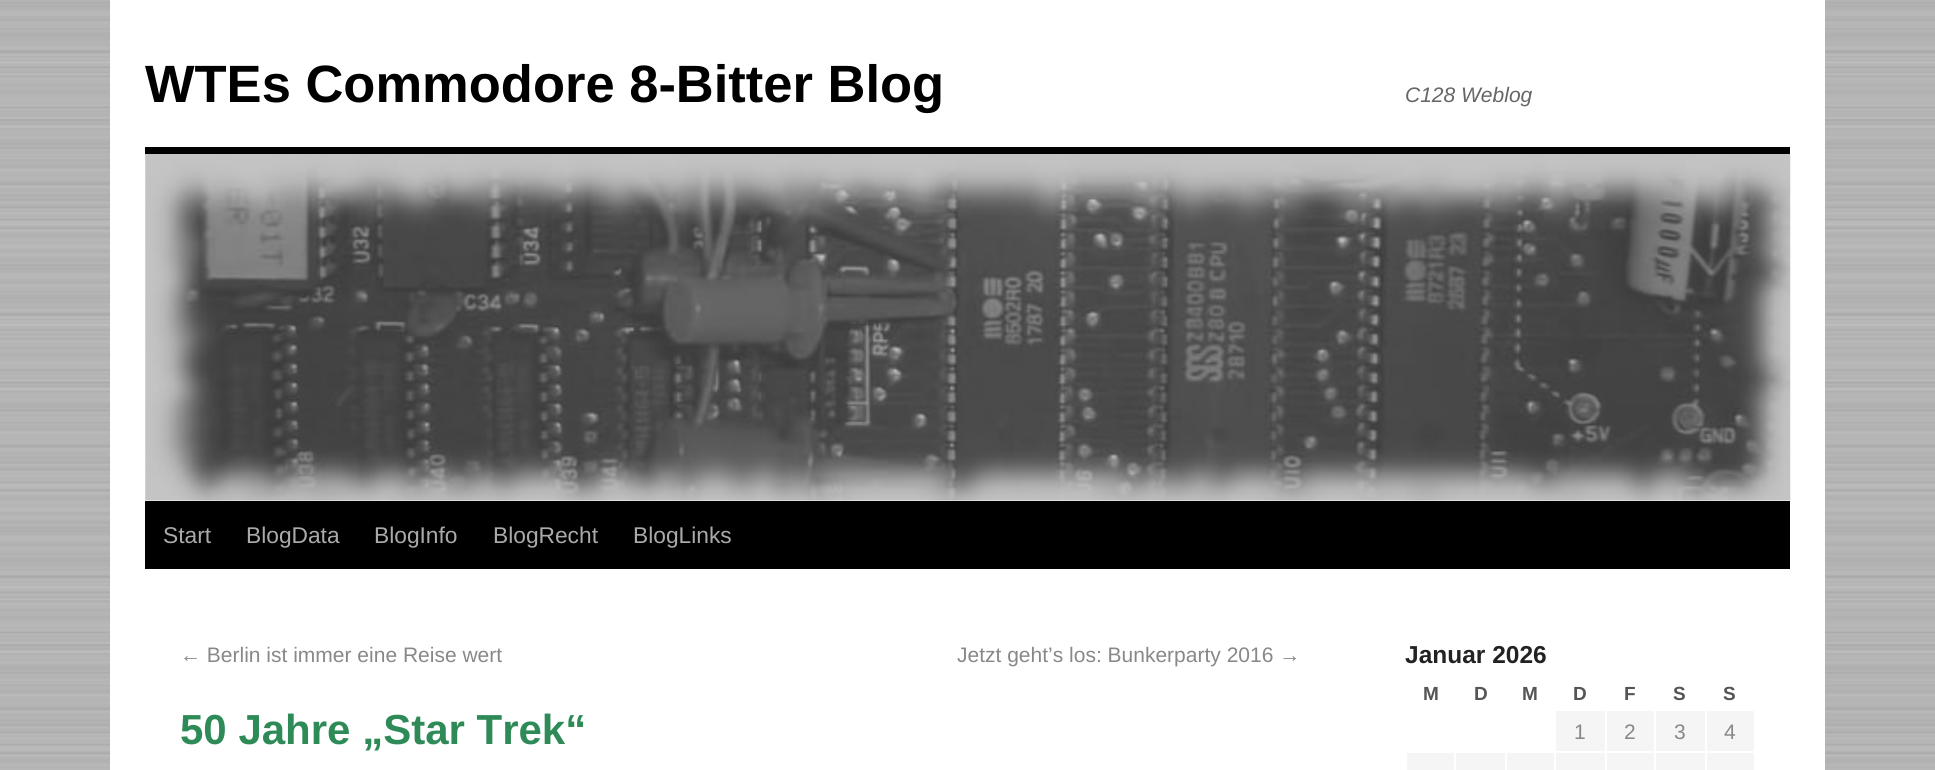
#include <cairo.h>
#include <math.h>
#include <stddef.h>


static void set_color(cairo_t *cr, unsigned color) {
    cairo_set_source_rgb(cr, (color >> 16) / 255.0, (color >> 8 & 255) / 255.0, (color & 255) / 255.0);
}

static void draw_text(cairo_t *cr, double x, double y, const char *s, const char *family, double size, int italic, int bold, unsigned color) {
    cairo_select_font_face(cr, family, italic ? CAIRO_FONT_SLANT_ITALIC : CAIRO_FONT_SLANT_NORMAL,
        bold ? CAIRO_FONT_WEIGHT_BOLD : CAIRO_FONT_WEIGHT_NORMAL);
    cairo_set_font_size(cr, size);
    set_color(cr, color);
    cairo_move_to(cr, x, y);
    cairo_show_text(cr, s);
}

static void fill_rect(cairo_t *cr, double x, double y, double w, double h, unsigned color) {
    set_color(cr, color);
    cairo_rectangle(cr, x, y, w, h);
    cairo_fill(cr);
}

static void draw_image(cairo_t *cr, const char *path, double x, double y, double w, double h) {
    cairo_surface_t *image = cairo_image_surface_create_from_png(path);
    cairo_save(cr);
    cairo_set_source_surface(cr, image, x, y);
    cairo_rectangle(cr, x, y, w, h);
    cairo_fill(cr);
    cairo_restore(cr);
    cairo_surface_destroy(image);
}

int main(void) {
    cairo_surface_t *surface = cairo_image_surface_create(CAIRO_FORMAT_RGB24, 1935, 770);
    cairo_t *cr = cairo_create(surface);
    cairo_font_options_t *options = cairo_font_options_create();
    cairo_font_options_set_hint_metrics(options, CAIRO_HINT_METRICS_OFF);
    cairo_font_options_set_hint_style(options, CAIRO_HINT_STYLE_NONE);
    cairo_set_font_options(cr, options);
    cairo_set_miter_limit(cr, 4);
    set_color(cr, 0xFFFFFF);
    cairo_paint(cr);
    draw_image(cr, "assets/img1.png", 0, 0, 1935, 770);
    fill_rect(cr, 110, 0, 1715, 770, 0xFFFFFF);
    draw_text(cr, 145, 102, "WTEs Commodore 8-Bitter Blog", "Liberation Sans", 52.5, 0, 1, 0x000000);
    draw_text(cr, 1405, 102, "C128 Weblog", "Liberation Sans", 21, 1, 0, 0x666666);
    fill_rect(cr, 145, 147, 1645, 7, 0x000000);
    fill_rect(cr, 145, 501, 1645, 68, 0x000000);
    draw_image(cr, "assets/img2.png", 145, 154, 1646, 347);
    draw_text(cr, 163, 543, "Start", "Liberation Sans", 22.75, 0, 0, 0xAAAAAA);
    draw_text(cr, 246, 543, "BlogData", "Liberation Sans", 22.75, 0, 0, 0xAAAAAA);
    draw_text(cr, 374, 543, "BlogInfo", "Liberation Sans", 22.75, 0, 0, 0xAAAAAA);
    draw_text(cr, 493, 543, "BlogRecht", "Liberation Sans", 22.75, 0, 0, 0xAAAAAA);
    draw_text(cr, 633, 543, "BlogLinks", "Liberation Sans", 22.75, 0, 0, 0xAAAAAA);
    draw_text(cr, 180, 662, "← Berlin ist immer eine Reise wert", "Liberation Sans", 21, 0, 0, 0x888888);
    draw_text(cr, 957, 662, "Jetzt geht’s los: Bunkerparty 2016 →", "Liberation Sans", 21, 0, 0, 0x888888);
    draw_text(cr, 180, 744, "50 Jahre „Star Trek“", "Liberation Sans", 42, 0, 1, 0x2E8B57);
    draw_text(cr, 1405, 663, "Januar 2026", "Liberation Sans", 24.5, 0, 1, 0x222222);
    draw_text(cr, 1423, 700, "M", "Liberation Sans", 19, 0, 1, 0x555555);
    draw_text(cr, 1474, 700, "D", "Liberation Sans", 19, 0, 1, 0x555555);
    draw_text(cr, 1522, 700, "M", "Liberation Sans", 19, 0, 1, 0x555555);
    draw_text(cr, 1573, 700, "D", "Liberation Sans", 19, 0, 1, 0x555555);
    draw_text(cr, 1624, 700, "F", "Liberation Sans", 19, 0, 1, 0x555555);
    draw_text(cr, 1673, 700, "S", "Liberation Sans", 19, 0, 1, 0x555555);
    draw_text(cr, 1723, 700, "S", "Liberation Sans", 19, 0, 1, 0x555555);
    fill_rect(cr, 1556, 711, 49, 40, 0xF5F5F5);
    draw_text(cr, 1574, 739, "1", "Liberation Sans", 21, 0, 0, 0x888888);
    fill_rect(cr, 1607, 711, 47, 40, 0xF5F5F5);
    draw_text(cr, 1624, 739, "2", "Liberation Sans", 21, 0, 0, 0x888888);
    fill_rect(cr, 1656, 711, 49, 40, 0xF5F5F5);
    draw_text(cr, 1674, 739, "3", "Liberation Sans", 21, 0, 0, 0x888888);
    fill_rect(cr, 1707, 711, 47, 40, 0xF5F5F5);
    draw_text(cr, 1724, 739, "4", "Liberation Sans", 21, 0, 0, 0x888888);
    fill_rect(cr, 1407, 753, 47, 17, 0xF5F5F5);
    fill_rect(cr, 1456, 753, 49, 17, 0xF5F5F5);
    fill_rect(cr, 1507, 753, 47, 17, 0xF5F5F5);
    fill_rect(cr, 1556, 753, 49, 17, 0xF5F5F5);
    fill_rect(cr, 1607, 753, 47, 17, 0xF5F5F5);
    fill_rect(cr, 1656, 753, 49, 17, 0xF5F5F5);
    fill_rect(cr, 1707, 753, 47, 17, 0xF5F5F5);
    cairo_surface_write_to_png(surface, "output.png");
    cairo_font_options_destroy(options);
    cairo_destroy(cr);
    cairo_surface_destroy(surface);
    return 0;
}
